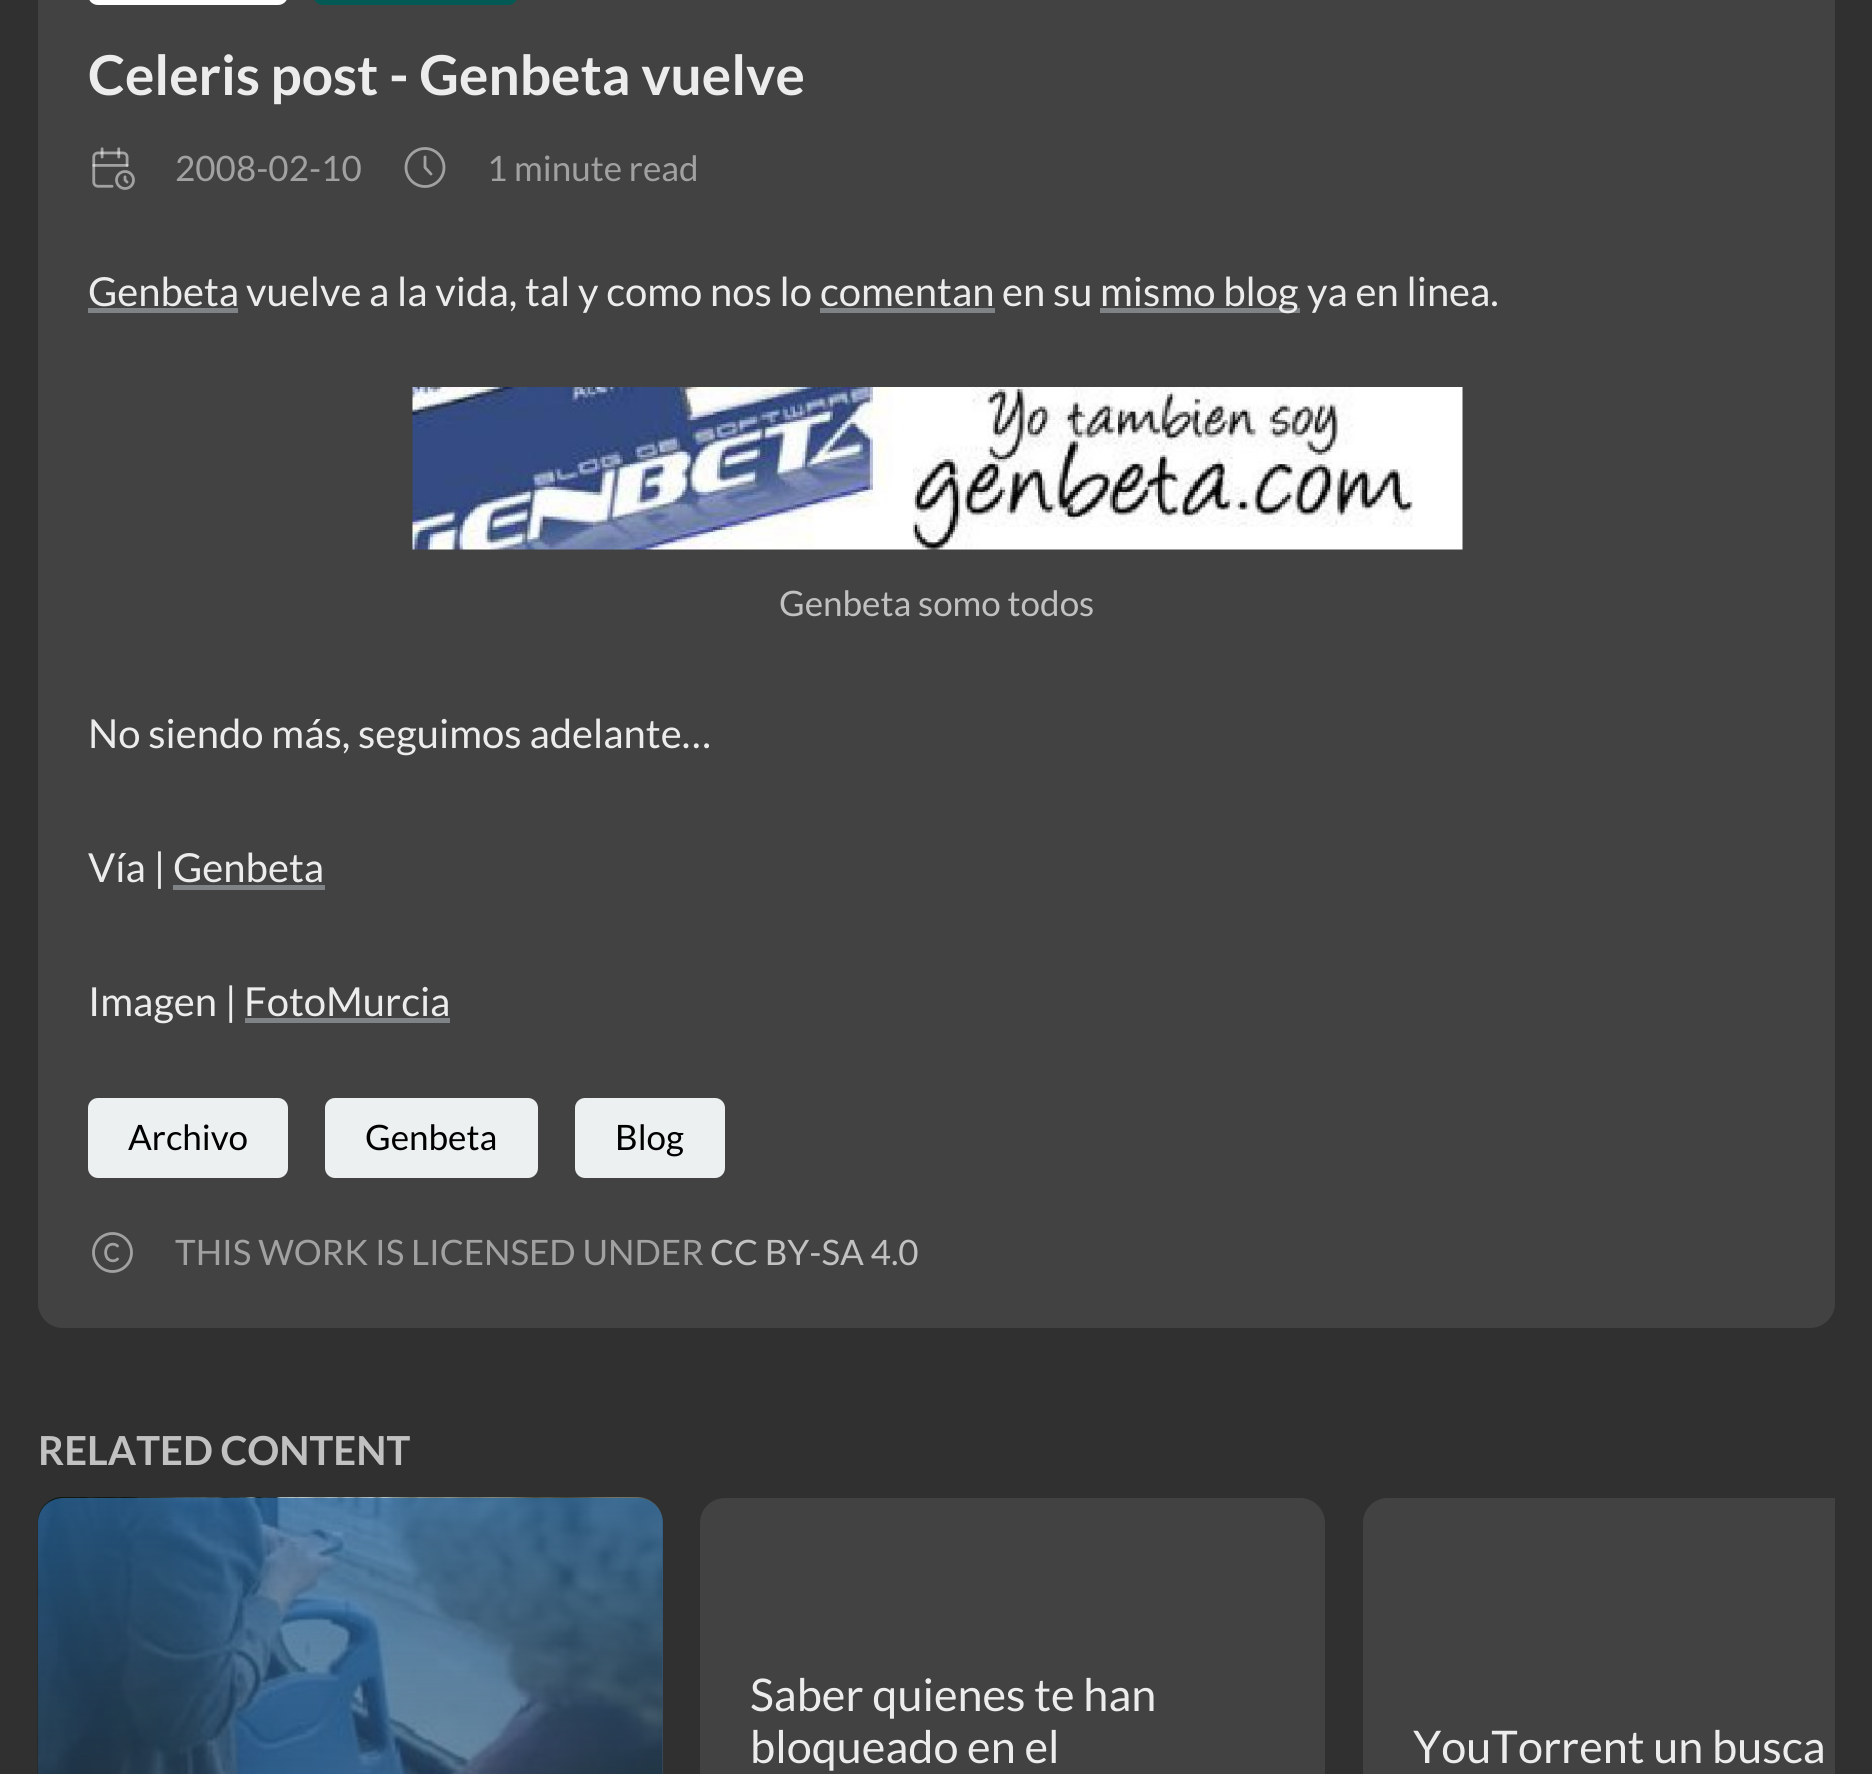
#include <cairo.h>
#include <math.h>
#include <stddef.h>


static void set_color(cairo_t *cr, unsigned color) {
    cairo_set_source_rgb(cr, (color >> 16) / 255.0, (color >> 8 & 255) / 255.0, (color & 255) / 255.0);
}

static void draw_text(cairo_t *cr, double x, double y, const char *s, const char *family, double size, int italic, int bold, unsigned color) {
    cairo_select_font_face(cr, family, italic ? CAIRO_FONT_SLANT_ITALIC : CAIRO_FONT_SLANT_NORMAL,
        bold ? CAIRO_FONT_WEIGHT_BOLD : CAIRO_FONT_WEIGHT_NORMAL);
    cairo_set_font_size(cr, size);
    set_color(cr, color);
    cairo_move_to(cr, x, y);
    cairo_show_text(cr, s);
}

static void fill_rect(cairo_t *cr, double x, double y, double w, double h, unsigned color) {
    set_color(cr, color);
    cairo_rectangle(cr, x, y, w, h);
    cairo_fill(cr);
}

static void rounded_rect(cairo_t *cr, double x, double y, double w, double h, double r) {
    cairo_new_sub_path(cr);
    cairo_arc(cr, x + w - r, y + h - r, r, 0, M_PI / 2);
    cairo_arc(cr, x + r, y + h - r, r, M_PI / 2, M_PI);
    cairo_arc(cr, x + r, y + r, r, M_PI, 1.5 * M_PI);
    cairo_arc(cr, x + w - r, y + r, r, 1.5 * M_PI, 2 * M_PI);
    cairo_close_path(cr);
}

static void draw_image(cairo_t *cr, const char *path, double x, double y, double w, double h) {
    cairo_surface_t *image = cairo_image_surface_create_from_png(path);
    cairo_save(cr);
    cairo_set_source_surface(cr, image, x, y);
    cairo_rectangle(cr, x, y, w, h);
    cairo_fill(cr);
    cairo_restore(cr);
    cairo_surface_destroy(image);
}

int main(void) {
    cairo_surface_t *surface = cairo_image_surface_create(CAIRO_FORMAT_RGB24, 1872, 1774);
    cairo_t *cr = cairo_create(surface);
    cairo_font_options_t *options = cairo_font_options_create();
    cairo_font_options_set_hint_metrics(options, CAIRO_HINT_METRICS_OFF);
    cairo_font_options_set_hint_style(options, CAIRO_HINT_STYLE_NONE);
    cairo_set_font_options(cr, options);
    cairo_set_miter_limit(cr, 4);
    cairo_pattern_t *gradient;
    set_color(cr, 0x303030);
    cairo_paint(cr);
    set_color(cr, 0x424242);
    rounded_rect(cr, 38, -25, 1797, 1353, 25);
    cairo_fill(cr);
    set_color(cr, 0xFFFFFF);
    rounded_rect(cr, 88, -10, 200, 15, 10);
    cairo_fill(cr);
    set_color(cr, 0x035954);
    rounded_rect(cr, 313, -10, 205, 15, 10);
    cairo_fill(cr);
    draw_text(cr, 88, 95, "Celeris post - Genbeta vuelve", "Lato", 55, 0, 1, 0xECECEC);
    draw_image(cr, "assets/img1.png", 92, 147, 43, 43);
    draw_text(cr, 175, 181, "2008-02-10", "Lato", 35, 0, 0, 0xA1A1A1);
    cairo_new_path(cr);
    cairo_arc(cr, 425, 167.5, 19, 0, 2 * M_PI);
    cairo_set_line_width(cr, 2.8);
    cairo_stroke(cr);
    cairo_new_path(cr);
    cairo_move_to(cr, 425, 157);
    cairo_line_to(cr, 425, 167.5);
    cairo_line_to(cr, 431, 174);
    cairo_set_line_cap(cr, CAIRO_LINE_CAP_ROUND);
    cairo_set_line_join(cr, CAIRO_LINE_JOIN_ROUND);
    cairo_stroke(cr);
    draw_text(cr, 487, 181, "1 minute read", "Lato", 35, 0, 0, 0xA1A1A1);
    draw_text(cr, 88, 306, "Genbeta", "Lato", 40, 0, 0, 0xECECEC);
    fill_rect(cr, 88, 308, 150, 5, 0x808385);
    draw_text(cr, 246, 306, "vuelve a la vida, tal y como nos lo", "Lato", 40, 0, 0, 0xECECEC);
    draw_text(cr, 820, 306, "comentan", "Lato", 40, 0, 0, 0xECECEC);
    fill_rect(cr, 820, 308, 175, 5, 0x808385);
    draw_text(cr, 1002, 306, "en su", "Lato", 40, 0, 0, 0xECECEC);
    fill_rect(cr, 1100, 308, 200, 5, 0x808385);
    draw_text(cr, 1100, 306, "mismo blog", "Lato", 40, 0, 0, 0xECECEC);
    draw_text(cr, 1307, 306, "ya en linea.", "Lato", 40, 0, 0, 0xECECEC);
    draw_image(cr, "assets/img2.png", 412, 387, 1051, 163);
    draw_text(cr, 779, 616, "Genbeta somo todos", "Lato", 35, 0, 0, 0xC1C1C1);
    draw_text(cr, 88, 748, "No siendo más, seguimos adelante…", "Lato", 40, 0, 0, 0xECECEC);
    draw_text(cr, 88, 882, "Vía |", "Lato", 40, 0, 0, 0xECECEC);
    draw_text(cr, 173, 882, "Genbeta", "Lato", 40, 0, 0, 0xECECEC);
    fill_rect(cr, 173, 885, 152, 5, 0x808385);
    draw_text(cr, 88, 1016, "Imagen |", "Lato", 40, 0, 0, 0xECECEC);
    draw_text(cr, 244, 1016, "FotoMurcia", "Lato", 40, 0, 0, 0xECECEC);
    fill_rect(cr, 245, 1018, 205, 5, 0x808385);
    set_color(cr, 0xECF0F1);
    rounded_rect(cr, 88, 1098, 200, 80, 10);
    cairo_fill(cr);
    draw_text(cr, 128, 1150, "Archivo", "Lato", 35, 0, 0, 0x000000);
    set_color(cr, 0xECF0F1);
    rounded_rect(cr, 325, 1098, 213, 80, 10);
    cairo_fill(cr);
    draw_text(cr, 365, 1150, "Genbeta", "Lato", 35, 0, 0, 0x000000);
    set_color(cr, 0xECF0F1);
    rounded_rect(cr, 575, 1098, 150, 80, 10);
    cairo_fill(cr);
    draw_text(cr, 615, 1150, "Blog", "Lato", 35, 0, 0, 0x000000);
    cairo_new_path(cr);
    cairo_arc(cr, 112.5, 1252.5, 19, 0, 2 * M_PI);
    set_color(cr, 0xA1A1A1);
    cairo_set_line_cap(cr, CAIRO_LINE_CAP_BUTT);
    cairo_set_line_join(cr, CAIRO_LINE_JOIN_MITER);
    cairo_stroke(cr);
    cairo_new_path(cr);
    cairo_move_to(cr, 117.5, 1246);
    cairo_curve_to(cr, 115, 1243.5, 110.5, 1243.5, 107.5, 1246.5);
    cairo_curve_to(cr, 105, 1250, 105, 1255, 107.5, 1258.5);
    cairo_curve_to(cr, 110.5, 1261.5, 115, 1261.5, 117.5, 1259);
    cairo_set_line_cap(cr, CAIRO_LINE_CAP_ROUND);
    cairo_set_line_join(cr, CAIRO_LINE_JOIN_ROUND);
    cairo_stroke(cr);
    draw_text(cr, 175, 1265, "THIS WORK IS LICENSED UNDER", "Lato", 35, 0, 0, 0xA1A1A1);
    draw_text(cr, 710, 1265, "CC BY-SA 4.0", "Lato", 35, 0, 0, 0xC1C1C1);
    draw_text(cr, 38, 1465, "RELATED CONTENT", "Lato", 40, 0, 1, 0xC1C1C1);
    set_color(cr, 0x424242);
    rounded_rect(cr, 38, 1498, 625, 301, 25);
    cairo_fill(cr);
    draw_image(cr, "assets/img3.png", 37, 1497, 626, 277);
    gradient = cairo_pattern_create_linear(350, 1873, 350, 1498);
    cairo_pattern_add_color_stop_rgba(gradient, 0, 0.22, 0.306, 0.396, 0.5);
    cairo_pattern_add_color_stop_rgba(gradient, 1, 0.165, 0.408, 0.635, 0.75);
    cairo_set_source(cr, gradient);
    cairo_pattern_destroy(gradient);
    rounded_rect(cr, 38, 1498, 625, 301, 25);
    cairo_fill(cr);
    set_color(cr, 0x424242);
    rounded_rect(cr, 700, 1498, 625, 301, 25);
    cairo_fill(cr);
    draw_text(cr, 750, 1711, "Saber quienes te han", "Lato", 45, 0, 0, 0xECECEC);
    draw_text(cr, 750, 1763, "bloqueado en el", "Lato", 45, 0, 0, 0xECECEC);
    set_color(cr, 0x424242);
    cairo_new_path(cr);
    cairo_move_to(cr, 1388, 1498);
    cairo_line_to(cr, 1835, 1498);
    cairo_line_to(cr, 1835, 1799);
    cairo_line_to(cr, 1388, 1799);
    cairo_curve_to(cr, 1374, 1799, 1363, 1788, 1363, 1774);
    cairo_line_to(cr, 1363, 1523);
    cairo_curve_to(cr, 1363, 1509, 1374, 1498, 1388, 1498);
    cairo_close_path(cr);
    cairo_fill(cr);
    draw_text(cr, 1413, 1763, "YouTorrent un busca", "Lato", 45, 0, 0, 0xECECEC);
    cairo_surface_write_to_png(surface, "output.png");
    cairo_font_options_destroy(options);
    cairo_destroy(cr);
    cairo_surface_destroy(surface);
    return 0;
}
